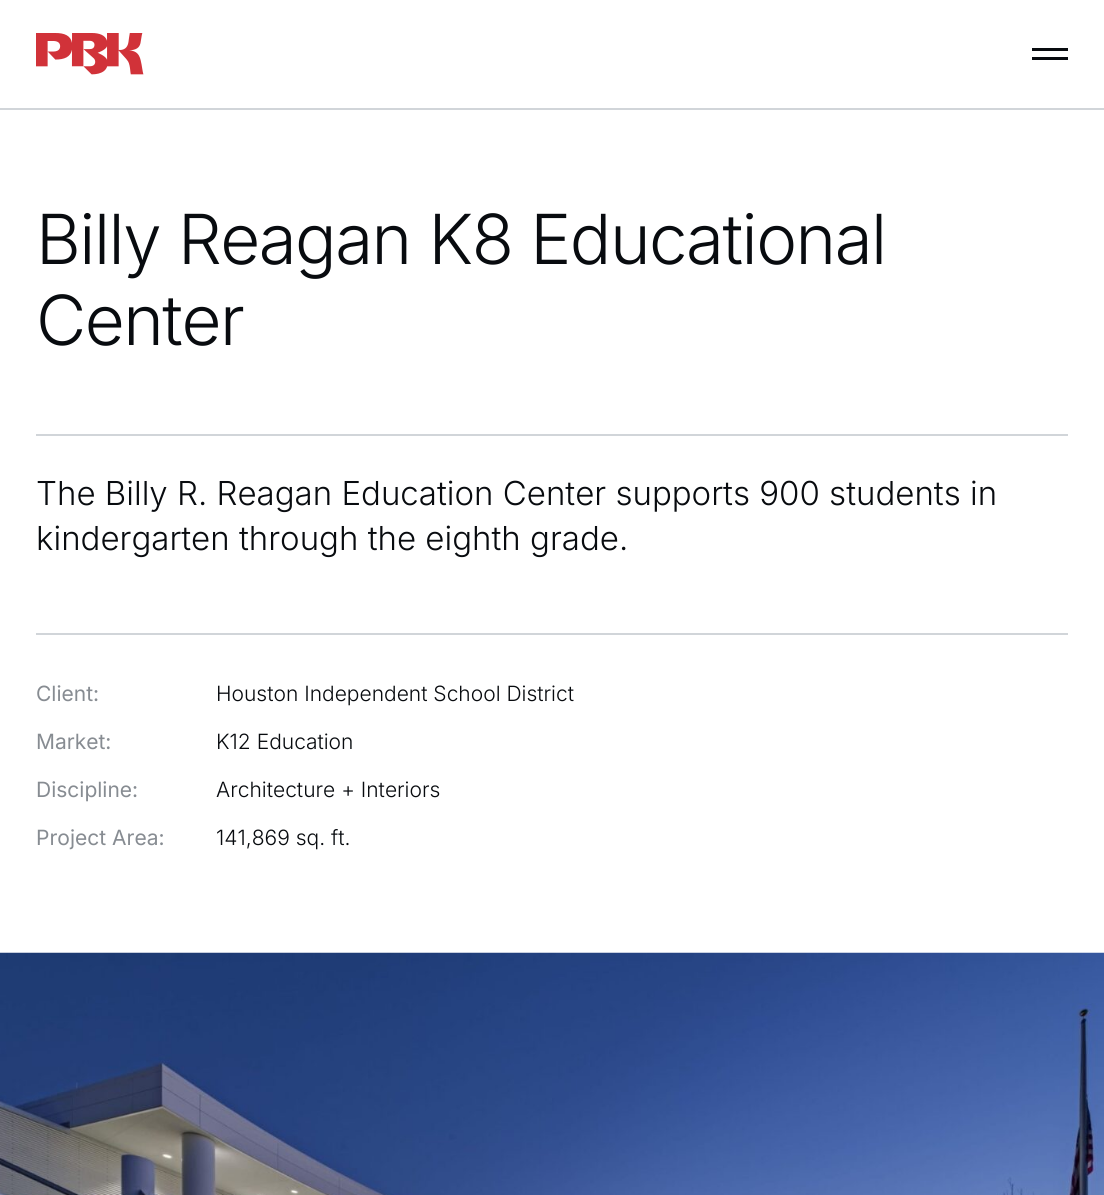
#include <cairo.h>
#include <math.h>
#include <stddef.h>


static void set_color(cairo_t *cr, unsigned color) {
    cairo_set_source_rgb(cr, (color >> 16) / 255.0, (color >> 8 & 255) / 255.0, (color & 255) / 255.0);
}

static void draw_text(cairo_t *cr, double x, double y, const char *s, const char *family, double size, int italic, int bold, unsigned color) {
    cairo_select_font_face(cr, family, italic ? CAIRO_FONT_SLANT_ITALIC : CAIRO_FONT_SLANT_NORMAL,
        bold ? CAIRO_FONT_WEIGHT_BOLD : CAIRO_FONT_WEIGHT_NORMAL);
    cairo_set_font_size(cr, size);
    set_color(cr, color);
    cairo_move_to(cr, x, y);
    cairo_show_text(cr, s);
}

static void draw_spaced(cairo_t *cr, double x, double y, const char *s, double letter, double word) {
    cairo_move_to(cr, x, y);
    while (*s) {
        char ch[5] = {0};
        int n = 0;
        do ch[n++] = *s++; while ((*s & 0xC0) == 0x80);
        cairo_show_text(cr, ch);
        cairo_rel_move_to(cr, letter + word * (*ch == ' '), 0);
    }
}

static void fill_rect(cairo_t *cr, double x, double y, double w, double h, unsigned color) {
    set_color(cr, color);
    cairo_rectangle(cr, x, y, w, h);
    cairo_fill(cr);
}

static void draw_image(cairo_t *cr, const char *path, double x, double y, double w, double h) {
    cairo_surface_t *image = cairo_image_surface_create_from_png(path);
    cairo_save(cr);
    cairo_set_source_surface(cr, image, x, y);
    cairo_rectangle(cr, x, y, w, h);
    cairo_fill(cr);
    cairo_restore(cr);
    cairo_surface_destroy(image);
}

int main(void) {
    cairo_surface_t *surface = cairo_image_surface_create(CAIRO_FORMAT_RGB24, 1104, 1195);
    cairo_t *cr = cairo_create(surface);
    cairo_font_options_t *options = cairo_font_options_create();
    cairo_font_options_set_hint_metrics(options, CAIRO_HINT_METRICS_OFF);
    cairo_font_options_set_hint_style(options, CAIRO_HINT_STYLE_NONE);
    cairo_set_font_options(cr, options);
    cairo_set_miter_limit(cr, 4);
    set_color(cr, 0xFFFFFF);
    cairo_paint(cr);
    fill_rect(cr, 0, 108, 1104, 2, 0xD1D5D9);
    draw_image(cr, "assets/img1.png", 36, 33, 108, 42);
    fill_rect(cr, 1032, 48, 36, 3, 0x080B0F);
    fill_rect(cr, 1032, 57, 36, 3, 0x080B0F);
    cairo_select_font_face(cr, "Inter Light", CAIRO_FONT_SLANT_NORMAL, CAIRO_FONT_WEIGHT_NORMAL);
    cairo_set_font_size(cr, 69);
    draw_spaced(cr, 36, 264, "Billy Reagan K8 Educational", -1.5, 0);
    draw_spaced(cr, 36, 345, "Center", -1.5, 0);
    fill_rect(cr, 36, 434, 1032, 2, 0xD1D5D9);
    draw_text(cr, 36, 505, "The Billy R. Reagan Education Center supports 900 students in", "Inter Light", 33, 0, 0, 0x080B0F);
    draw_text(cr, 36, 550, "kindergarten through the eighth grade.", "Inter Light", 33, 0, 0, 0x080B0F);
    fill_rect(cr, 36, 633, 1032, 2, 0xD1D5D9);
    draw_text(cr, 36, 701, "Client:", "Inter", 21, 0, 0, 0x878C92);
    draw_text(cr, 216, 701, "Houston Independent School District", "Inter Light", 21, 0, 0, 0x080B0F);
    draw_text(cr, 36, 749, "Market:", "Inter", 21, 0, 0, 0x878C92);
    draw_text(cr, 216, 749, "K12 Education", "Inter Light", 21, 0, 0, 0x080B0F);
    draw_text(cr, 36, 797, "Discipline:", "Inter", 21, 0, 0, 0x878C92);
    draw_text(cr, 216, 797, "Architecture + Interiors", "Inter Light", 21, 0, 0, 0x080B0F);
    draw_text(cr, 36, 845, "Project Area:", "Inter", 21, 0, 0, 0x878C92);
    draw_text(cr, 216, 845, "141,869 sq. ft.", "Inter Light", 21, 0, 0, 0x080B0F);
    draw_image(cr, "assets/img2.png", 0, 952, 1104, 243);
    cairo_surface_write_to_png(surface, "output.png");
    cairo_font_options_destroy(options);
    cairo_destroy(cr);
    cairo_surface_destroy(surface);
    return 0;
}
